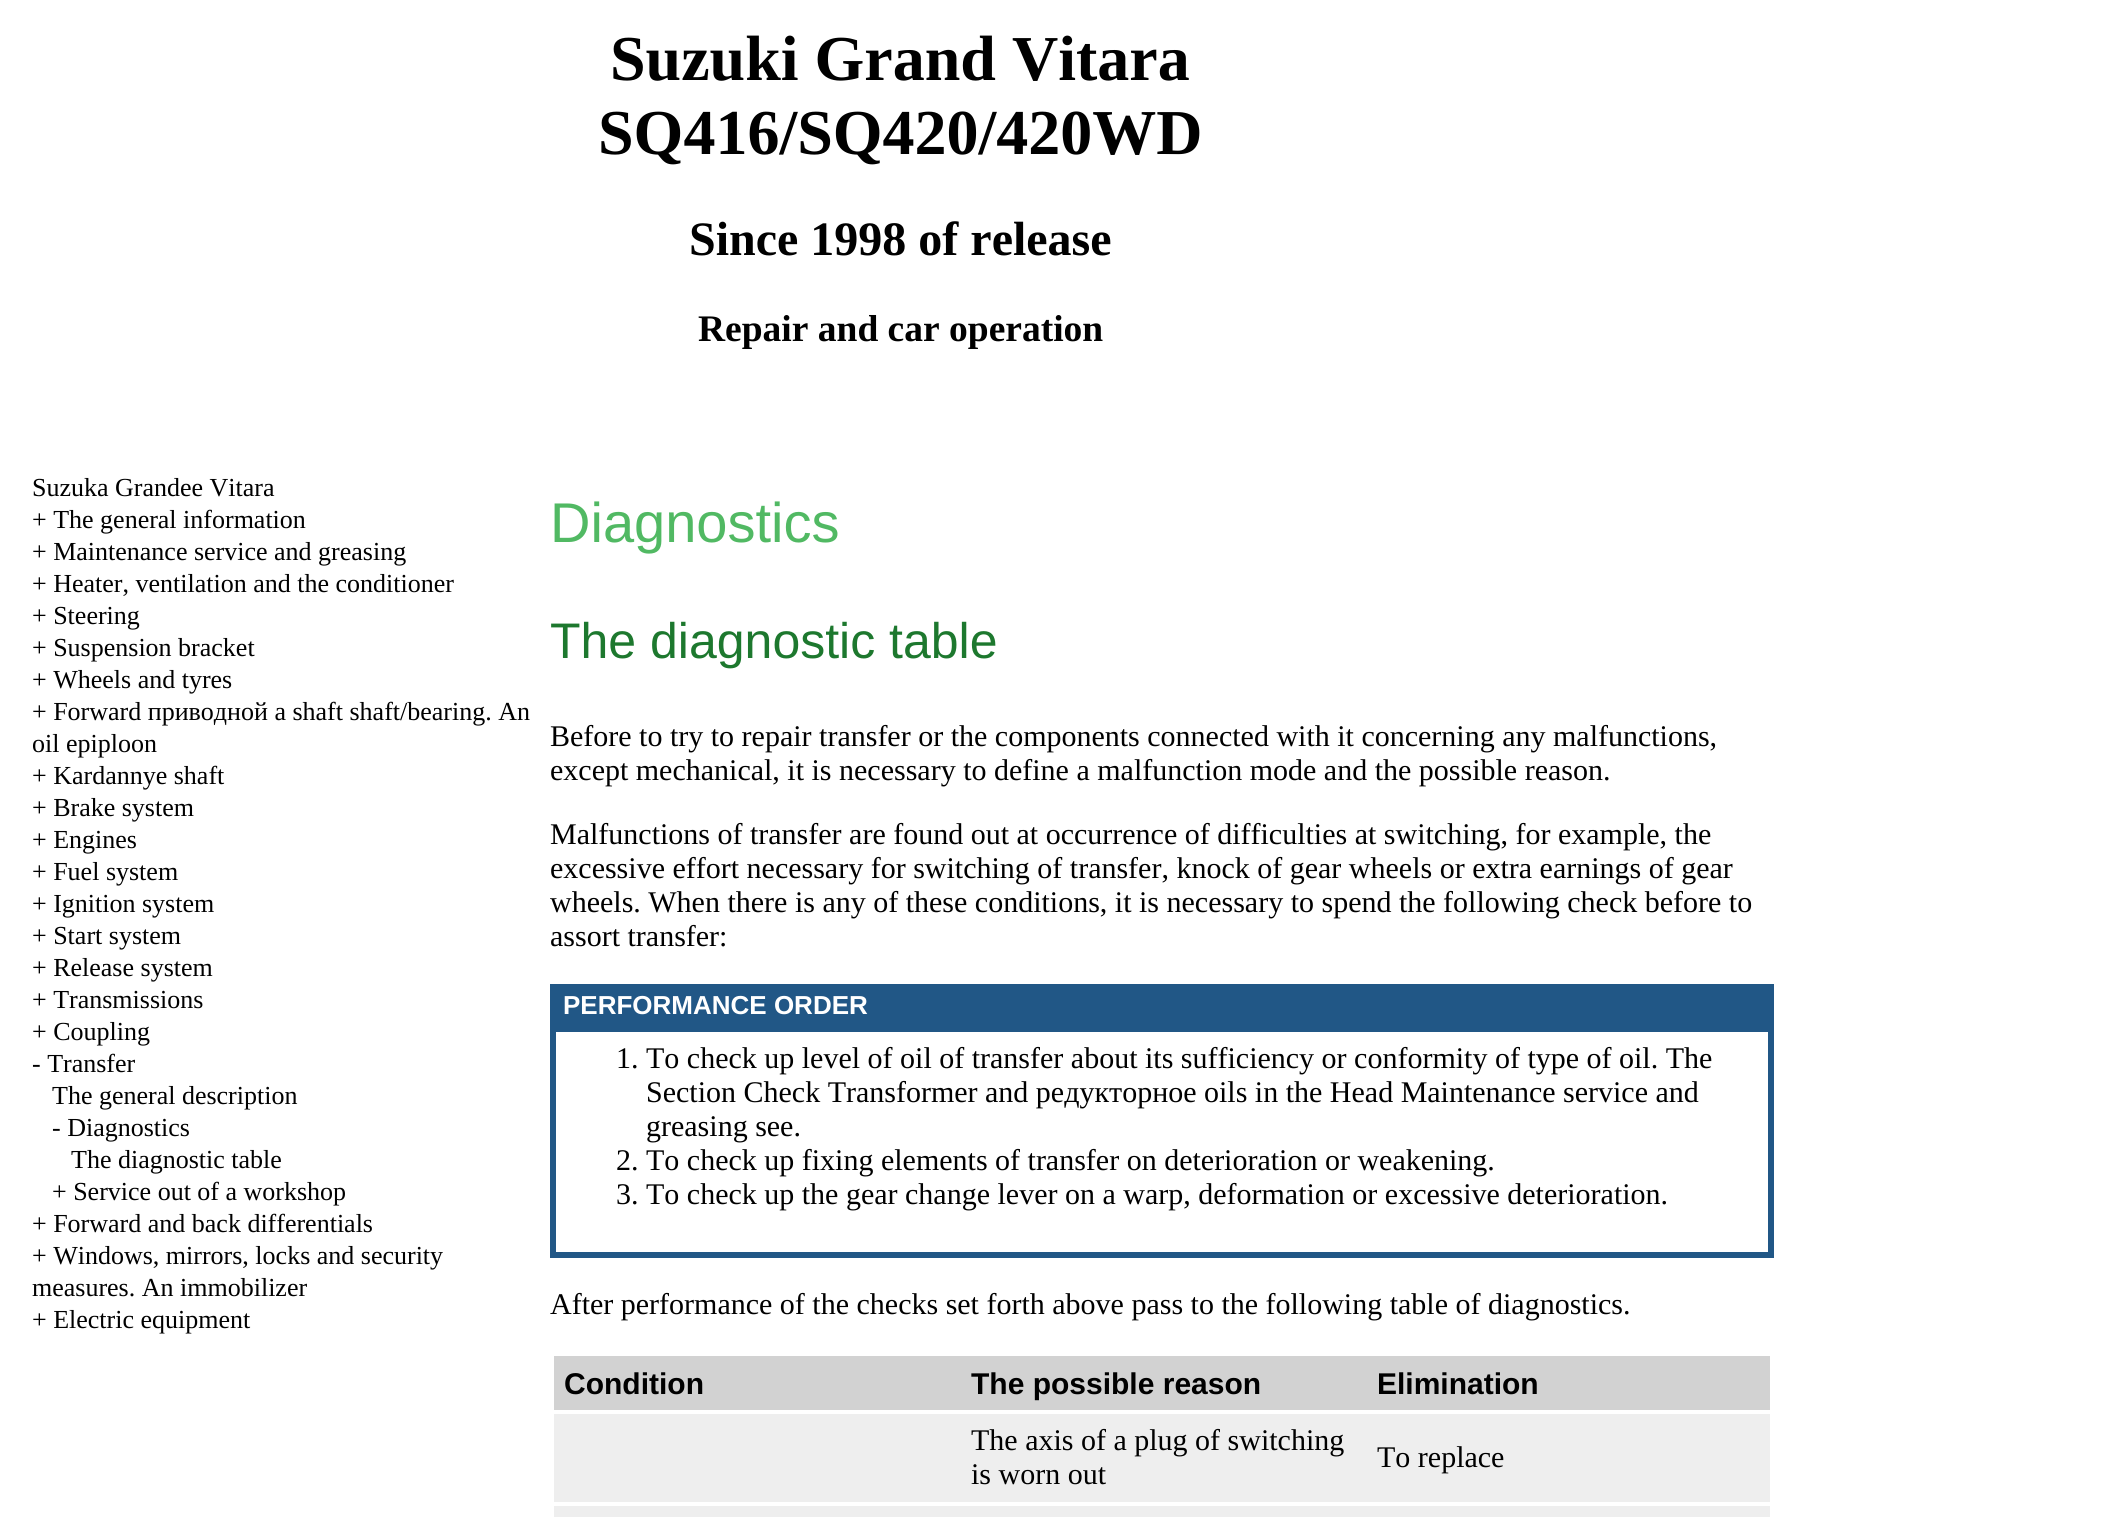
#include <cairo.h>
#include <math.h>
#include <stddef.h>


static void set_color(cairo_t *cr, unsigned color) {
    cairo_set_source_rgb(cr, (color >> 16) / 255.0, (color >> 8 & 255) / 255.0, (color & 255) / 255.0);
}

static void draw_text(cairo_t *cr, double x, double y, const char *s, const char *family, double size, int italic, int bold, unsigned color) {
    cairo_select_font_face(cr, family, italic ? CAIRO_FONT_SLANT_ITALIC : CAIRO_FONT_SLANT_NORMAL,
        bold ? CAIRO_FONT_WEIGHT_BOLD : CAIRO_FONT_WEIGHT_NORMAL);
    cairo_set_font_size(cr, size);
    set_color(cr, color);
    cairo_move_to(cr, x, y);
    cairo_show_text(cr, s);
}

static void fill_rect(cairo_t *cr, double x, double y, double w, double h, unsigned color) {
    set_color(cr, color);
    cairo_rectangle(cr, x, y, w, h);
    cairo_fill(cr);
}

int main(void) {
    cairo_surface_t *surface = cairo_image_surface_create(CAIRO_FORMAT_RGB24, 2119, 1517);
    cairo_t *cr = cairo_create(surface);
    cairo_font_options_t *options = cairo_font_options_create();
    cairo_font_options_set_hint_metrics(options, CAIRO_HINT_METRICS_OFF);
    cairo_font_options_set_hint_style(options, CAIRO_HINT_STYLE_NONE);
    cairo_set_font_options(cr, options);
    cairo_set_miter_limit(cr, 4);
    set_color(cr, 0xFFFFFF);
    cairo_paint(cr);
    draw_text(cr, 610, 80, "Suzuki Grand Vitara", "Liberation Serif", 64, 0, 1, 0x000000);
    draw_text(cr, 598, 154, "SQ416/SQ420/420WD", "Liberation Serif", 64, 0, 1, 0x000000);
    draw_text(cr, 689, 255, "Since 1998 of release", "Liberation Serif", 48, 0, 1, 0x000000);
    draw_text(cr, 698, 341, "Repair and car operation", "Liberation Serif", 37.5, 0, 1, 0x000000);
    draw_text(cr, 32, 496, "Suzuka Grandee Vitara", "Liberation Serif", 26, 0, 0, 0x000000);
    draw_text(cr, 32, 528, "+ The general information", "Liberation Serif", 26, 0, 0, 0x000000);
    draw_text(cr, 32, 560, "+ Maintenance service and greasing", "Liberation Serif", 26, 0, 0, 0x000000);
    draw_text(cr, 32, 592, "+ Heater, ventilation and the conditioner", "Liberation Serif", 26, 0, 0, 0x000000);
    draw_text(cr, 32, 624, "+ Steering", "Liberation Serif", 26, 0, 0, 0x000000);
    draw_text(cr, 32, 656, "+ Suspension bracket", "Liberation Serif", 26, 0, 0, 0x000000);
    draw_text(cr, 32, 688, "+ Wheels and tyres", "Liberation Serif", 26, 0, 0, 0x000000);
    draw_text(cr, 32, 720, "+ Forward приводной a shaft shaft/bearing. An", "Liberation Serif", 26, 0, 0, 0x000000);
    draw_text(cr, 32, 752, "oil epiploon", "Liberation Serif", 26, 0, 0, 0x000000);
    draw_text(cr, 32, 784, "+ Kardannye shaft", "Liberation Serif", 26, 0, 0, 0x000000);
    draw_text(cr, 32, 816, "+ Brake system", "Liberation Serif", 26, 0, 0, 0x000000);
    draw_text(cr, 32, 848, "+ Engines", "Liberation Serif", 26, 0, 0, 0x000000);
    draw_text(cr, 32, 880, "+ Fuel system", "Liberation Serif", 26, 0, 0, 0x000000);
    draw_text(cr, 32, 912, "+ Ignition system", "Liberation Serif", 26, 0, 0, 0x000000);
    draw_text(cr, 32, 944, "+ Start system", "Liberation Serif", 26, 0, 0, 0x000000);
    draw_text(cr, 32, 976, "+ Release system", "Liberation Serif", 26, 0, 0, 0x000000);
    draw_text(cr, 32, 1008, "+ Transmissions", "Liberation Serif", 26, 0, 0, 0x000000);
    draw_text(cr, 32, 1040, "+ Coupling", "Liberation Serif", 26, 0, 0, 0x000000);
    draw_text(cr, 32, 1072, "- Transfer", "Liberation Serif", 26, 0, 0, 0x000000);
    draw_text(cr, 52, 1104, "The general description", "Liberation Serif", 26, 0, 0, 0x000000);
    draw_text(cr, 52, 1136, "- Diagnostics", "Liberation Serif", 26, 0, 0, 0x000000);
    draw_text(cr, 71, 1168, "The diagnostic table", "Liberation Serif", 26, 0, 0, 0x000000);
    draw_text(cr, 52, 1200, "+ Service out of a workshop", "Liberation Serif", 26, 0, 0, 0x000000);
    draw_text(cr, 32, 1232, "+ Forward and back differentials", "Liberation Serif", 26, 0, 0, 0x000000);
    draw_text(cr, 32, 1264, "+ Windows, mirrors, locks and security", "Liberation Serif", 26, 0, 0, 0x000000);
    draw_text(cr, 32, 1296, "measures. An immobilizer", "Liberation Serif", 26, 0, 0, 0x000000);
    draw_text(cr, 32, 1328, "+ Electric equipment", "Liberation Serif", 26, 0, 0, 0x000000);
    draw_text(cr, 550, 542, "Diagnostics", "Liberation Sans", 56, 0, 0, 0x51B963);
    draw_text(cr, 550, 658, "The diagnostic table", "Liberation Sans", 50, 0, 0, 0x1D782E);
    draw_text(cr, 550, 746, "Before to try to repair transfer or the components connected with it concerning any malfunctions,", "Liberation Serif", 30, 0, 0, 0x000000);
    draw_text(cr, 550, 780, "except mechanical, it is necessary to define a malfunction mode and the possible reason.", "Liberation Serif", 30, 0, 0, 0x000000);
    draw_text(cr, 550, 844, "Malfunctions of transfer are found out at occurrence of difficulties at switching, for example, the", "Liberation Serif", 30, 0, 0, 0x000000);
    draw_text(cr, 550, 878, "excessive effort necessary for switching of transfer, knock of gear wheels or extra earnings of gear", "Liberation Serif", 30, 0, 0, 0x000000);
    draw_text(cr, 550, 912, "wheels. When there is any of these conditions, it is necessary to spend the following check before to", "Liberation Serif", 30, 0, 0, 0x000000);
    draw_text(cr, 550, 946, "assort transfer:", "Liberation Serif", 30, 0, 0, 0x000000);
    fill_rect(cr, 550, 984, 1224, 274, 0x215786);
    draw_text(cr, 563, 1014, "PERFORMANCE ORDER", "Liberation Sans", 26, 0, 1, 0xFFFFFF);
    fill_rect(cr, 556, 1032, 1212, 220, 0xFFFFFF);
    draw_text(cr, 616, 1068, "1. To check up level of oil of transfer about its sufficiency or conformity of type of oil. The", "Liberation Serif", 30, 0, 0, 0x000000);
    draw_text(cr, 646, 1102, "Section Check Transformer and редукторное oils in the Head Maintenance service and", "Liberation Serif", 30, 0, 0, 0x000000);
    draw_text(cr, 646, 1136, "greasing see.", "Liberation Serif", 30, 0, 0, 0x000000);
    draw_text(cr, 616, 1170, "2. To check up fixing elements of transfer on deterioration or weakening.", "Liberation Serif", 30, 0, 0, 0x000000);
    draw_text(cr, 616, 1204, "3. To check up the gear change lever on a warp, deformation or excessive deterioration.", "Liberation Serif", 30, 0, 0, 0x000000);
    draw_text(cr, 550, 1314, "After performance of the checks set forth above pass to the following table of diagnostics.", "Liberation Serif", 30, 0, 0, 0x000000);
    fill_rect(cr, 554, 1356, 1216, 54, 0xD2D2D2);
    draw_text(cr, 564, 1394, "Condition", "Liberation Sans", 30, 0, 1, 0x000000);
    draw_text(cr, 971, 1394, "The possible reason", "Liberation Sans", 30, 0, 1, 0x000000);
    draw_text(cr, 1377, 1394, "Elimination", "Liberation Sans", 30, 0, 1, 0x000000);
    fill_rect(cr, 554, 1414, 1216, 88, 0xEEEEEE);
    draw_text(cr, 971, 1450, "The axis of a plug of switching", "Liberation Serif", 30, 0, 0, 0x000000);
    draw_text(cr, 971, 1484, "is worn out", "Liberation Serif", 30, 0, 0, 0x000000);
    draw_text(cr, 1377, 1467, "To replace", "Liberation Serif", 30, 0, 0, 0x000000);
    fill_rect(cr, 554, 1506, 1216, 11, 0xEEEEEE);
    cairo_surface_write_to_png(surface, "output.png");
    cairo_font_options_destroy(options);
    cairo_destroy(cr);
    cairo_surface_destroy(surface);
    return 0;
}
